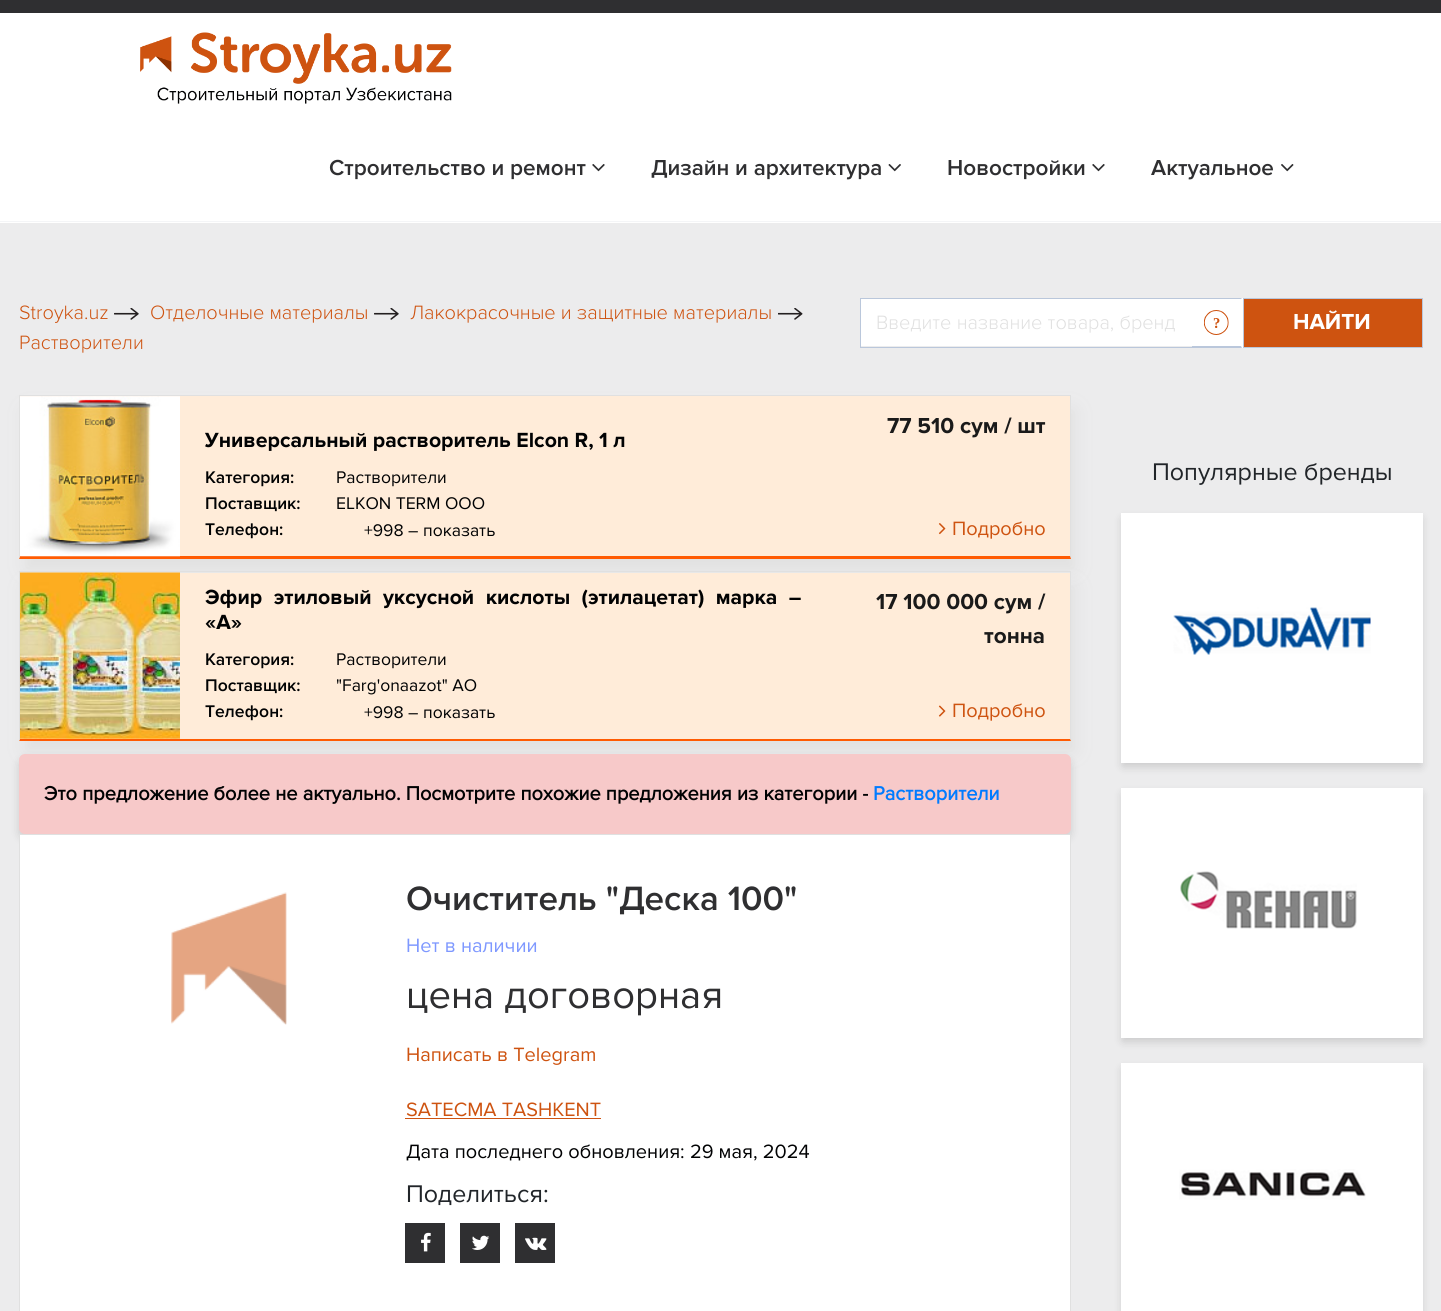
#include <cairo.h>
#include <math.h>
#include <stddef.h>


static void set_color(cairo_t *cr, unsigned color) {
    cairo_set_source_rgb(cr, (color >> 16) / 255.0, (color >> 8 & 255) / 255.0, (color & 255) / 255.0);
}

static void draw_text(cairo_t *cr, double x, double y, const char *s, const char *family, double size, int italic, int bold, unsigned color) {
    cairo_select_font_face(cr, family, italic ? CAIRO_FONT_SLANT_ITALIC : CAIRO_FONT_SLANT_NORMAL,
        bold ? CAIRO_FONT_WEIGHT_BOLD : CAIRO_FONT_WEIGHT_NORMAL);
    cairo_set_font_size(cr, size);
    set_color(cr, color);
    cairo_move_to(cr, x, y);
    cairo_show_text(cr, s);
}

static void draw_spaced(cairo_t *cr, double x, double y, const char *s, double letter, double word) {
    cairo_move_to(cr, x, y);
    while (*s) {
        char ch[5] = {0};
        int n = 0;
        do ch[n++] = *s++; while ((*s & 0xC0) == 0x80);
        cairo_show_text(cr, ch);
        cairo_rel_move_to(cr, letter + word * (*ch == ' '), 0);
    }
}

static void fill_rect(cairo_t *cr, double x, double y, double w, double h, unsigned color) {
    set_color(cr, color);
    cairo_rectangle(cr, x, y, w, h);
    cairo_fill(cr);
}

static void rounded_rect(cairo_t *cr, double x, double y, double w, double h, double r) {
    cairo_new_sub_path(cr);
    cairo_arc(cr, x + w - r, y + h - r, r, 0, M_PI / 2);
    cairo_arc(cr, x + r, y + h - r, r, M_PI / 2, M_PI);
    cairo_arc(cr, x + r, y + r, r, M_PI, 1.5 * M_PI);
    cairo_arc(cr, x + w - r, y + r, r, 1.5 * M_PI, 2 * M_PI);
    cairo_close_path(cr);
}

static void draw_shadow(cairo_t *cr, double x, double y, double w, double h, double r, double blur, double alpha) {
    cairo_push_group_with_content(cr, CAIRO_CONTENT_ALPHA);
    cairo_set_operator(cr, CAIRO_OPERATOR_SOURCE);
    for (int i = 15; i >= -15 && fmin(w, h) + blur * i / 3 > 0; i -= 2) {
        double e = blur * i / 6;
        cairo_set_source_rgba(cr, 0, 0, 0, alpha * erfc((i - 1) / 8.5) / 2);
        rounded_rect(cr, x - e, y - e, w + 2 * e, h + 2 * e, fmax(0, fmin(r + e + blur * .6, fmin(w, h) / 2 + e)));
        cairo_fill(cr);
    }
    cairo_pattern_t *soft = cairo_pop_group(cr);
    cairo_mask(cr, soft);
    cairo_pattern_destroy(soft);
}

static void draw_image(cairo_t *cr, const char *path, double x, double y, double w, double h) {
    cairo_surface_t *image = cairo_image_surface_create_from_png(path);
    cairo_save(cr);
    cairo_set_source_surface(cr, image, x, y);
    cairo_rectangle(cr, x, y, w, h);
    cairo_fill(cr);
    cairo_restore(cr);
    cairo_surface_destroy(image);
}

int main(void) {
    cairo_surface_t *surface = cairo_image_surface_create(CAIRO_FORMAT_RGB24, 1441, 1311);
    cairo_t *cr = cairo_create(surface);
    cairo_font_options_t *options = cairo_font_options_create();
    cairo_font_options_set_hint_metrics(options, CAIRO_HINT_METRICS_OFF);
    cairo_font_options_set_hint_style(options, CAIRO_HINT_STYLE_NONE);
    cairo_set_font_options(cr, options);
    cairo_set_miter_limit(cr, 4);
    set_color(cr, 0xECECED);
    cairo_paint(cr);
    fill_rect(cr, 0, 0, 1441, 13, 0x2F2F31);
    fill_rect(cr, 0, 13, 1441, 210, 0xFFFFFF);
    fill_rect(cr, 0, 221, 1441, 1, 0xF4F5F7);
    draw_image(cr, "assets/img1.png", 140, 32, 312, 72);
    draw_text(cr, 329, 175, "Строительство и ремонт", "Proxima Nova SemiBold", 22.5, 0, 0, 0x2F2F31);
    draw_image(cr, "assets/img2.png", 592, 164, 13, 8);
    draw_text(cr, 651, 175, "Дизайн и архитектура", "Proxima Nova SemiBold", 22.5, 0, 0, 0x2F2F31);
    draw_image(cr, "assets/img3.png", 888, 164, 13, 8);
    draw_text(cr, 947, 175, "Новостройки", "Proxima Nova SemiBold", 22.5, 0, 0, 0x2F2F31);
    draw_image(cr, "assets/img2.png", 1092, 164, 13, 8);
    draw_text(cr, 1151, 175, "Актуальное", "Proxima Nova SemiBold", 22.5, 0, 0, 0x2F2F31);
    draw_image(cr, "assets/img4.png", 1281, 164, 13, 8);
    draw_text(cr, 19, 319, "Stroyka.uz", "Proxima Nova Light", 20, 0, 0, 0xCE5310);
    draw_image(cr, "assets/img5.png", 114, 308, 25, 12);
    draw_text(cr, 150, 319, "Отделочные материалы", "Proxima Nova Light", 20, 0, 0, 0xCE5310);
    draw_image(cr, "assets/img5.png", 374, 308, 25, 12);
    draw_text(cr, 410, 319, "Лакокрасочные и защитные материалы", "Proxima Nova Light", 20, 0, 0, 0xCE5310);
    draw_image(cr, "assets/img6.png", 778, 308, 25, 12);
    draw_text(cr, 19, 349, "Растворители", "Proxima Nova Light", 20, 0, 0, 0xCE5310);
    fill_rect(cr, 861, 299, 332, 47, 0xFFFFFF);
    cairo_rectangle(cr, 860.5, 298.5, 333, 49);
    set_color(cr, 0xBAC7DB);
    cairo_set_line_width(cr, 1);
    cairo_stroke(cr);
    draw_text(cr, 876, 329, "Введите название товара, бренд", "Proxima Nova Light", 20, 0, 0, 0xE0E0E0);
    fill_rect(cr, 1193, 298, 50, 50, 0xFFFFFF);
    set_color(cr, 0xBAC7DB);
    cairo_new_path(cr);
    cairo_move_to(cr, 1192, 298);
    cairo_line_to(cr, 1242, 298);
    cairo_line_to(cr, 1241, 299);
    cairo_line_to(cr, 1192, 299);
    cairo_close_path(cr);
    cairo_move_to(cr, 1242, 348);
    cairo_line_to(cr, 1192, 348);
    cairo_line_to(cr, 1192, 346);
    cairo_line_to(cr, 1241, 346);
    cairo_close_path(cr);
    cairo_fill(cr);
    draw_image(cr, "assets/img7.png", 1204, 310, 25, 25);
    set_color(cr, 0xCE5310);
    cairo_rectangle(cr, 1243.5, 298.5, 179, 49);
    cairo_fill_preserve(cr);
    set_color(cr, 0xBAC7DB);
    cairo_stroke(cr);
    draw_text(cr, 1293, 329, "НАЙТИ", "Proxima Nova", 22.5, 0, 1, 0xFFFFFF);
    set_color(cr, 0xE0E0E0);
    draw_shadow(cr, 26, 410, 1048, 159, 0, 9, 1);
    fill_rect(cr, 20, 396, 1050, 160, 0xFFECD9);
    fill_rect(cr, 19, 395, 1052, 1, 0xE0E0E0);
    cairo_new_path(cr);
    cairo_move_to(cr, 1071, 395);
    cairo_line_to(cr, 1071, 559);
    cairo_line_to(cr, 1070, 556);
    cairo_line_to(cr, 1070, 396);
    cairo_close_path(cr);
    cairo_fill(cr);
    set_color(cr, 0xFF5B02);
    cairo_new_path(cr);
    cairo_move_to(cr, 1071, 559);
    cairo_line_to(cr, 19, 559);
    cairo_line_to(cr, 20, 556);
    cairo_line_to(cr, 1070, 556);
    cairo_close_path(cr);
    cairo_fill(cr);
    set_color(cr, 0xE0E0E0);
    cairo_new_path(cr);
    cairo_move_to(cr, 19, 559);
    cairo_line_to(cr, 19, 395);
    cairo_line_to(cr, 20, 396);
    cairo_line_to(cr, 20, 556);
    cairo_close_path(cr);
    cairo_fill(cr);
    draw_image(cr, "assets/img8.png", 20, 396, 160, 161);
    draw_text(cr, 205, 447, "Универсальный растворитель Elcon R, 1 л", "Proxima Nova", 21.25, 0, 1, 0x010203);
    draw_text(cr, 205, 483, "Категория:", "Proxima Nova SemiBold", 17.5, 0, 0, 0x010203);
    draw_text(cr, 336, 483, "Растворители", "Proxima Nova", 17.5, 0, 0, 0x010203);
    draw_text(cr, 205, 509, "Поставщик:", "Proxima Nova SemiBold", 17.5, 0, 0, 0x010203);
    draw_text(cr, 336, 509, "ELKON TERM OOO", "Proxima Nova", 17.5, 0, 0, 0x010203);
    draw_text(cr, 205, 535, "Телефон:", "Proxima Nova SemiBold", 17.5, 0, 0, 0x010203);
    draw_text(cr, 364, 536, "+998 – показать", "Proxima Nova", 17.5, 0, 0, 0x010203);
    draw_text(cr, 887, 433, "77 510 сум / шт", "Proxima Nova", 22.5, 0, 1, 0x1A1A1A);
    draw_image(cr, "assets/img9.png", 938, 523, 8, 12);
    draw_text(cr, 952, 535, "Подробно", "Proxima Nova", 20, 0, 0, 0xCE5310);
    set_color(cr, 0xE0E0E0);
    draw_shadow(cr, 26, 586, 1048, 165, 0, 9, 1);
    fill_rect(cr, 20, 573, 1050, 166, 0xFFECD9);
    fill_rect(cr, 19, 571, 1052, 1, 0xE0E0E0);
    cairo_new_path(cr);
    cairo_move_to(cr, 1071, 571);
    cairo_line_to(cr, 1071, 741);
    cairo_line_to(cr, 1070, 739);
    cairo_line_to(cr, 1070, 572);
    cairo_close_path(cr);
    cairo_fill(cr);
    set_color(cr, 0xFF5B02);
    cairo_new_path(cr);
    cairo_move_to(cr, 1071, 741);
    cairo_line_to(cr, 19, 741);
    cairo_line_to(cr, 20, 739);
    cairo_line_to(cr, 1070, 739);
    cairo_close_path(cr);
    cairo_fill(cr);
    set_color(cr, 0xE0E0E0);
    cairo_new_path(cr);
    cairo_move_to(cr, 19, 741);
    cairo_line_to(cr, 19, 571);
    cairo_line_to(cr, 20, 572);
    cairo_line_to(cr, 20, 739);
    cairo_close_path(cr);
    cairo_fill(cr);
    draw_image(cr, "assets/img10.png", 20, 572, 160, 167);
    cairo_select_font_face(cr, "Proxima Nova", CAIRO_FONT_SLANT_NORMAL, CAIRO_FONT_WEIGHT_BOLD);
    cairo_set_font_size(cr, 21.25);
    set_color(cr, 0x010203);
    draw_spaced(cr, 205, 604, "Эфир этиловый уксусной кислоты (этилацетат) марка –", 0, 6);
    draw_text(cr, 205, 629, "«А»", "Proxima Nova", 21.25, 0, 1, 0x010203);
    draw_text(cr, 205, 665, "Категория:", "Proxima Nova SemiBold", 17.5, 0, 0, 0x010203);
    draw_text(cr, 336, 665, "Растворители", "Proxima Nova", 17.5, 0, 0, 0x010203);
    draw_text(cr, 205, 691, "Поставщик:", "Proxima Nova SemiBold", 17.5, 0, 0, 0x010203);
    draw_text(cr, 336, 691, "\"Farg'onaazot\" АО", "Proxima Nova", 17.5, 0, 0, 0x010203);
    draw_text(cr, 205, 717, "Телефон:", "Proxima Nova SemiBold", 17.5, 0, 0, 0x010203);
    draw_text(cr, 364, 718, "+998 – показать", "Proxima Nova", 17.5, 0, 0, 0x010203);
    draw_text(cr, 876, 609, "17 100 000 сум /", "Proxima Nova", 22.5, 0, 1, 0x1A1A1A);
    draw_text(cr, 984, 643, "тонна", "Proxima Nova", 22.5, 0, 1, 0x1A1A1A);
    draw_image(cr, "assets/img11.png", 938, 705, 8, 12);
    draw_text(cr, 952, 717, "Подробно", "Proxima Nova", 20, 0, 0, 0xCE5310);
    set_color(cr, 0x000000);
    draw_shadow(cr, 20, 760, 1050, 78, 5, 5, 0.16);
    set_color(cr, 0xF7C9C9);
    rounded_rect(cr, 19, 754, 1052, 80, 6);
    cairo_fill(cr);
    draw_text(cr, 44, 800, "Это предложение более не актуально. Посмотрите похожие предложения из категории -", "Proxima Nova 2", 20, 0, 1, 0x010203);
    draw_text(cr, 873, 800, "Растворители", "Proxima Nova 2", 20, 0, 1, 0x007BFF);
    set_color(cr, 0xFFFFFF);
    cairo_rectangle(cr, 19.5, 834.5, 1051, 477);
    cairo_fill_preserve(cr);
    set_color(cr, 0xE0E0E0);
    cairo_stroke(cr);
    draw_image(cr, "assets/img12.png", 171, 892, 116, 133);
    draw_text(cr, 406, 910, "Очиститель \"Деска 100\"", "Proxima Nova SemiBold", 35, 0, 0, 0x2F2F31);
    draw_text(cr, 406, 952, "Нет в наличии", "Proxima Nova", 20, 0, 0, 0x7E98FF);
    draw_text(cr, 406, 1008, "цена договорная", "Proxima Nova", 40, 0, 0, 0x2F2F31);
    draw_text(cr, 406, 1061, "Написать в Telegram", "Proxima Nova", 20, 0, 0, 0xCE5310);
    draw_text(cr, 406, 1116, "SATECMA TASHKENT", "Proxima Nova", 20, 0, 0, 0xCE5310);
    fill_rect(cr, 405, 1118, 196, 1, 0xCE5310);
    draw_text(cr, 406, 1158, "Дата последнего обновления: 29 мая, 2024", "Proxima Nova", 20, 0, 0, 0x010203);
    draw_text(cr, 406, 1202, "Поделиться:", "Proxima Nova", 25, 0, 0, 0x212529);
    fill_rect(cr, 405, 1223, 40, 40, 0x2F2F31);
    draw_image(cr, "assets/img13.png", 421, 1232, 10, 20);
    fill_rect(cr, 460, 1223, 40, 40, 0x2F2F31);
    draw_image(cr, "assets/img14.png", 472, 1235, 18, 15);
    fill_rect(cr, 515, 1223, 40, 40, 0x2F2F31);
    draw_image(cr, "assets/img15.png", 525, 1237, 22, 13);
    draw_text(cr, 1152, 480, "Популярные бренды", "Proxima Nova", 25, 0, 0, 0x212529);
    set_color(cr, 0x000000);
    draw_shadow(cr, 1123, 519, 298, 247, 0, 5, 0.16);
    fill_rect(cr, 1121, 513, 302, 250, 0xFFFFFF);
    draw_image(cr, "assets/img16.png", 1173, 607, 198, 48);
    set_color(cr, 0x000000);
    draw_shadow(cr, 1123, 794, 298, 247, 0, 5, 0.16);
    fill_rect(cr, 1121, 788, 302, 250, 0xFFFFFF);
    draw_image(cr, "assets/img17.png", 1180, 871, 177, 58);
    set_color(cr, 0x000000);
    draw_shadow(cr, 1123, 1069, 298, 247, 0, 5, 0.16);
    fill_rect(cr, 1121, 1063, 302, 248, 0xFFFFFF);
    draw_image(cr, "assets/img18.png", 1179, 1169, 187, 31);
    cairo_surface_write_to_png(surface, "output.png");
    cairo_font_options_destroy(options);
    cairo_destroy(cr);
    cairo_surface_destroy(surface);
    return 0;
}
